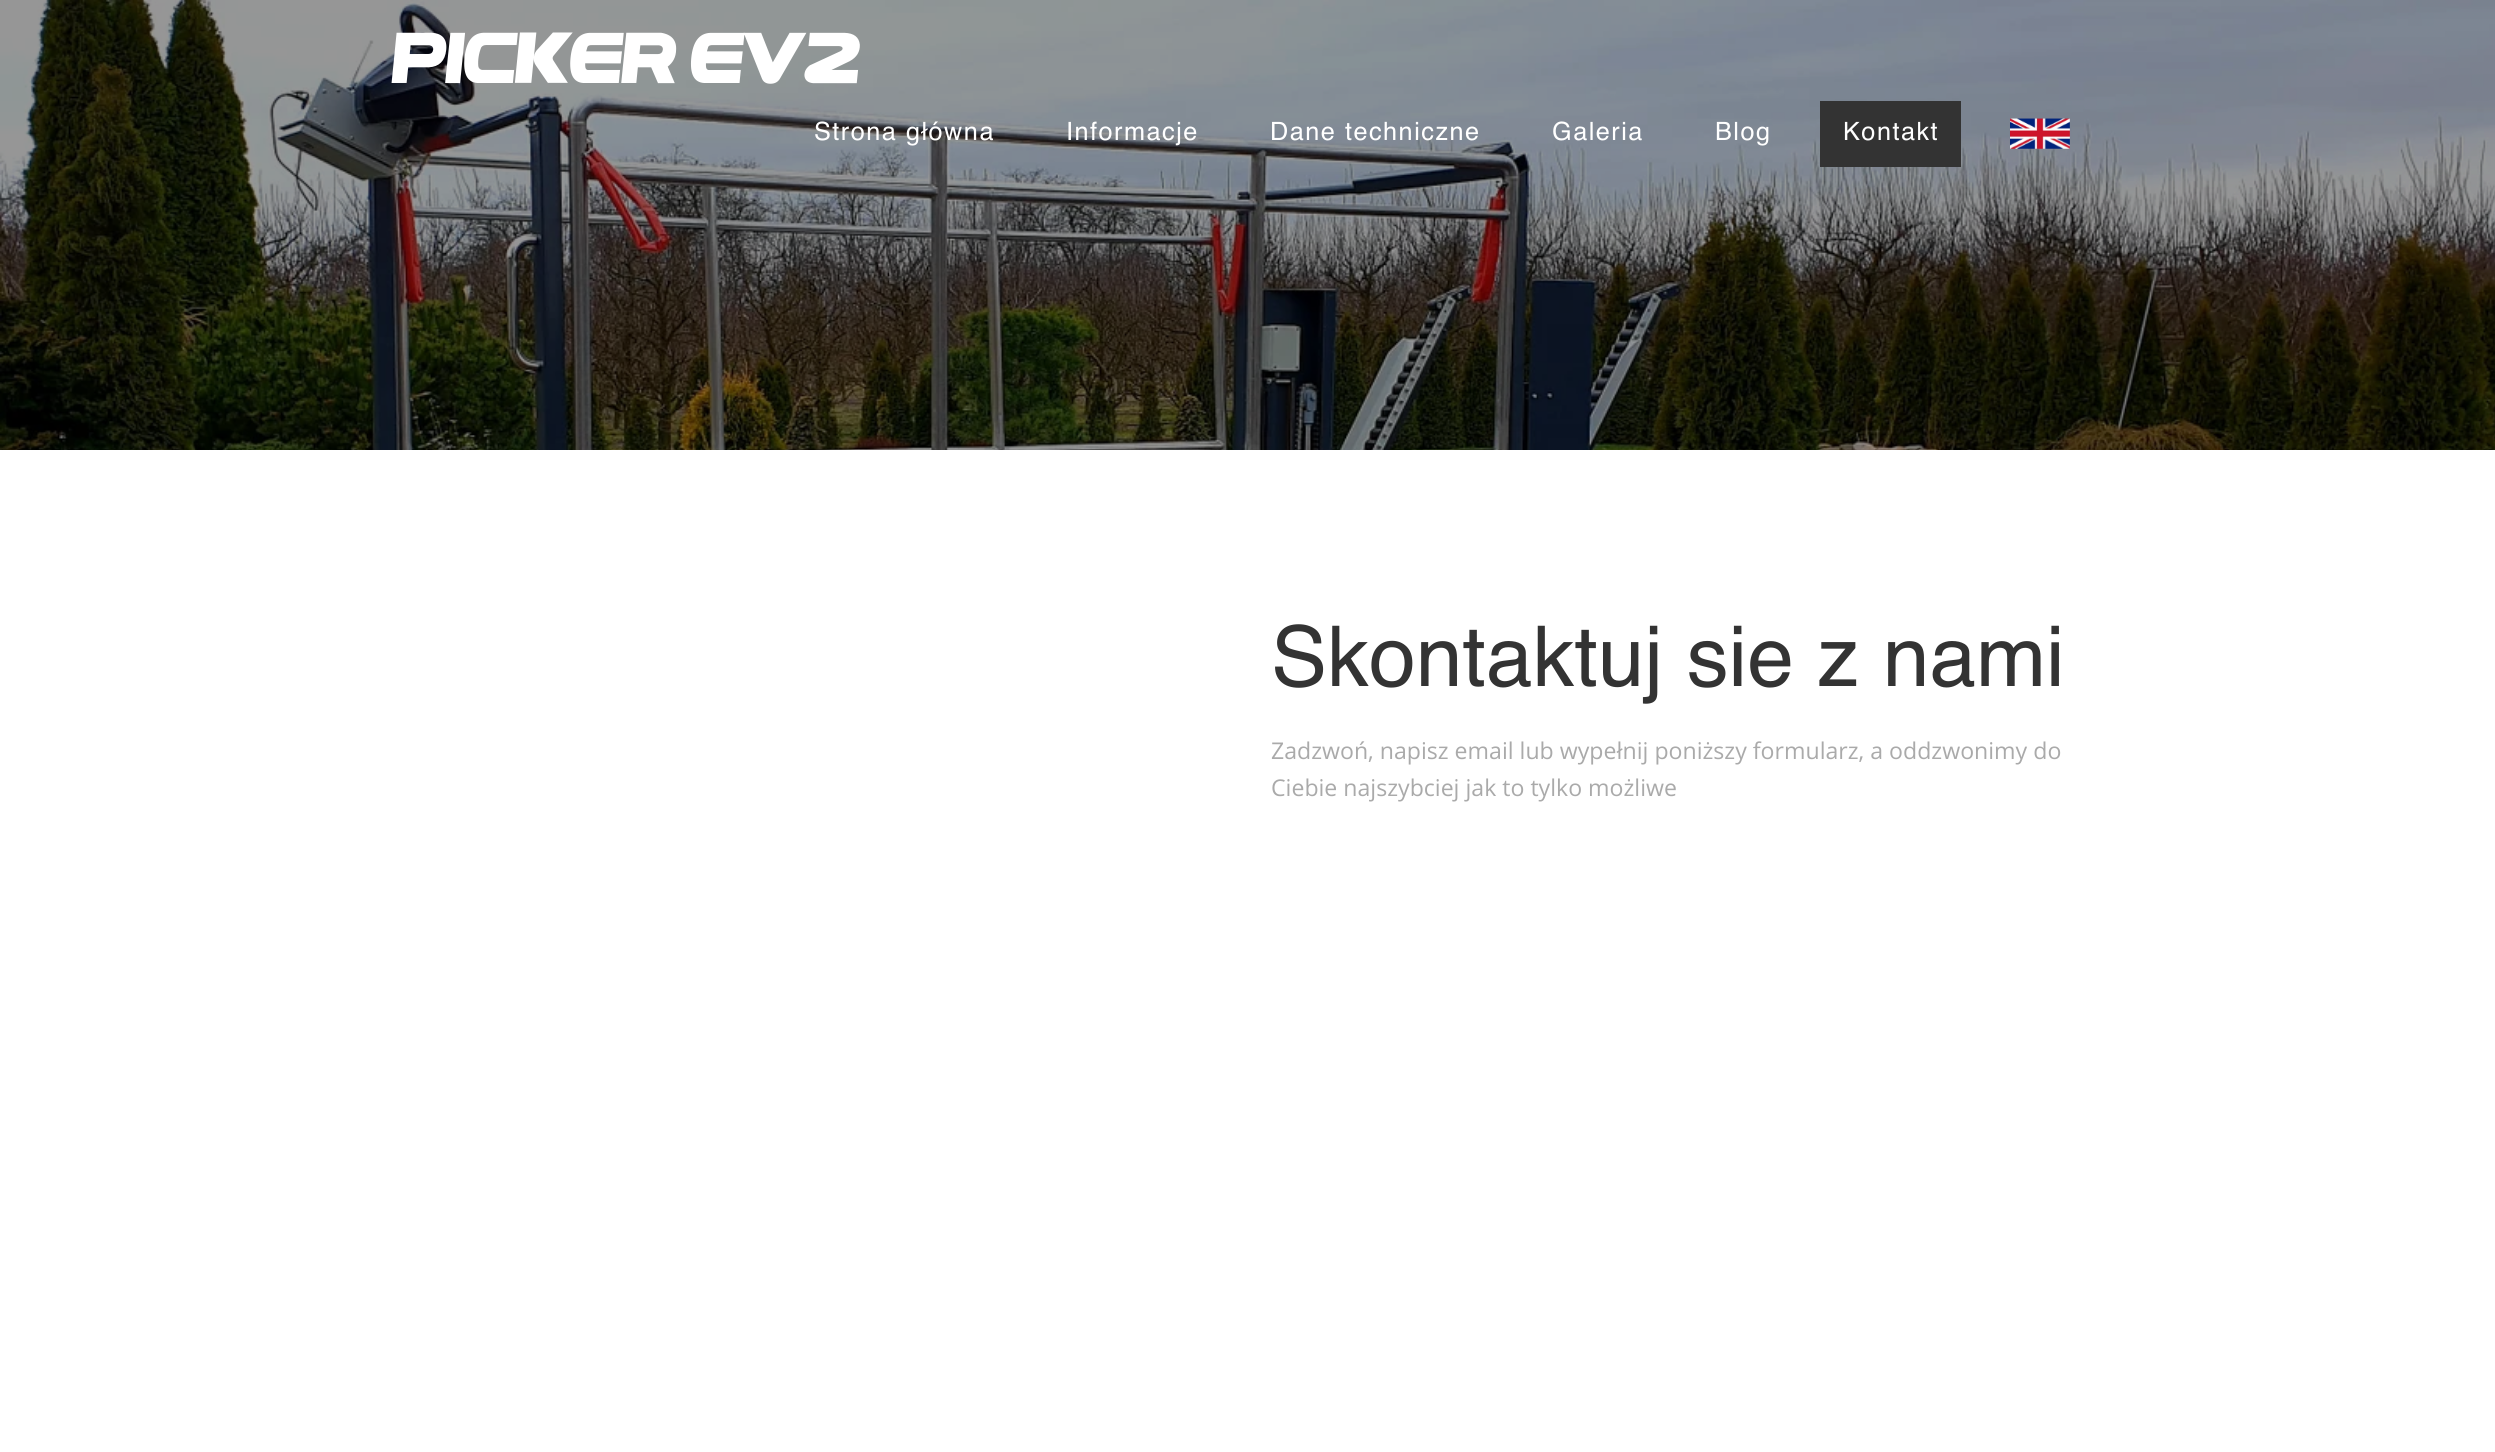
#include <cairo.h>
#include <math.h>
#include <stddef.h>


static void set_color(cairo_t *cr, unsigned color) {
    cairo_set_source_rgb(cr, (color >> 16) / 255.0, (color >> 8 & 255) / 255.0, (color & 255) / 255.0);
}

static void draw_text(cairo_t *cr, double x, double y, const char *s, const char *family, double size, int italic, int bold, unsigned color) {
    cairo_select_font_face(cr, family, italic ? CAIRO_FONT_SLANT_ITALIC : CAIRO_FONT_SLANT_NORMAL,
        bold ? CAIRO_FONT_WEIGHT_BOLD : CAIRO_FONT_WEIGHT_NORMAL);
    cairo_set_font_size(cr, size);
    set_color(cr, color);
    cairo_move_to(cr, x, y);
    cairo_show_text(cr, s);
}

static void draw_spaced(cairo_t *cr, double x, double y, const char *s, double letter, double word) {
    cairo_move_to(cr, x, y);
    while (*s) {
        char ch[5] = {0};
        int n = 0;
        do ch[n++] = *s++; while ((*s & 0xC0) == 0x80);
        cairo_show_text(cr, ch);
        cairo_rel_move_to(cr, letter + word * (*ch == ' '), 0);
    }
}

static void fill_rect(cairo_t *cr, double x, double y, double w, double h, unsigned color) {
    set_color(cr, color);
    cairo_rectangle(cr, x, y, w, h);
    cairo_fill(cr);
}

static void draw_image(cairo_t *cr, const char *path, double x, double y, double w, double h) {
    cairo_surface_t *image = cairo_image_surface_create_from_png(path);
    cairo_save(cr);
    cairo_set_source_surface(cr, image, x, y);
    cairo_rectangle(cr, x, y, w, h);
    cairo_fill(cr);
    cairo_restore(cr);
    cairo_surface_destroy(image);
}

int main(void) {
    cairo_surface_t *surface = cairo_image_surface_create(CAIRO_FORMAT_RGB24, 2495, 1452);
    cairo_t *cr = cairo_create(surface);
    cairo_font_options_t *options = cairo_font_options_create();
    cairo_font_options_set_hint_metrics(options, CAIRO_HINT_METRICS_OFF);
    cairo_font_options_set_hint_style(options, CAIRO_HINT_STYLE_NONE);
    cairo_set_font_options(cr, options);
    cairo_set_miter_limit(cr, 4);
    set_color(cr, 0xFFFFFF);
    cairo_paint(cr);
    draw_image(cr, "assets/img1.png", 0, 0, 2495, 450);
    draw_text(cr, 393, 83, "PICKER EV2", "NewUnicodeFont", 73.5, 0, 0, 0xFFFFFF);
    cairo_select_font_face(cr, "Helvetica", CAIRO_FONT_SLANT_NORMAL, CAIRO_FONT_WEIGHT_NORMAL);
    cairo_set_font_size(cr, 25.25);
    draw_spaced(cr, 814, 140, "Strona główna", 1.5, 0);
    draw_spaced(cr, 1066, 140, "Informacje", 1.5, 0);
    draw_spaced(cr, 1270, 140, "Dane techniczne", 1.5, 0);
    draw_spaced(cr, 1552, 140, "Galeria", 1.5, 0);
    draw_spaced(cr, 1715, 140, "Blog", 1.5, 0);
    fill_rect(cr, 1820, 101, 141, 66, 0x333333);
    set_color(cr, 0xFFFFFF);
    draw_spaced(cr, 1843, 140, "Kontakt", 1.5, 0);
    draw_image(cr, "assets/img2.png", 2010, 118, 60, 31);
    draw_text(cr, 1271, 686, "Skontaktuj sie z nami", "Helvetica", 84, 0, 0, 0x333333);
    draw_text(cr, 1271, 759, "Zadzwoń, napisz email lub wypełnij poniższy formularz, a oddzwonimy do", "Open Sans", 23.1, 0, 0, 0xAAAAAA);
    draw_text(cr, 1271, 796, "Ciebie najszybciej jak to tylko możliwe", "Open Sans", 23.1, 0, 0, 0xAAAAAA);
    cairo_surface_write_to_png(surface, "output.png");
    cairo_font_options_destroy(options);
    cairo_destroy(cr);
    cairo_surface_destroy(surface);
    return 0;
}
